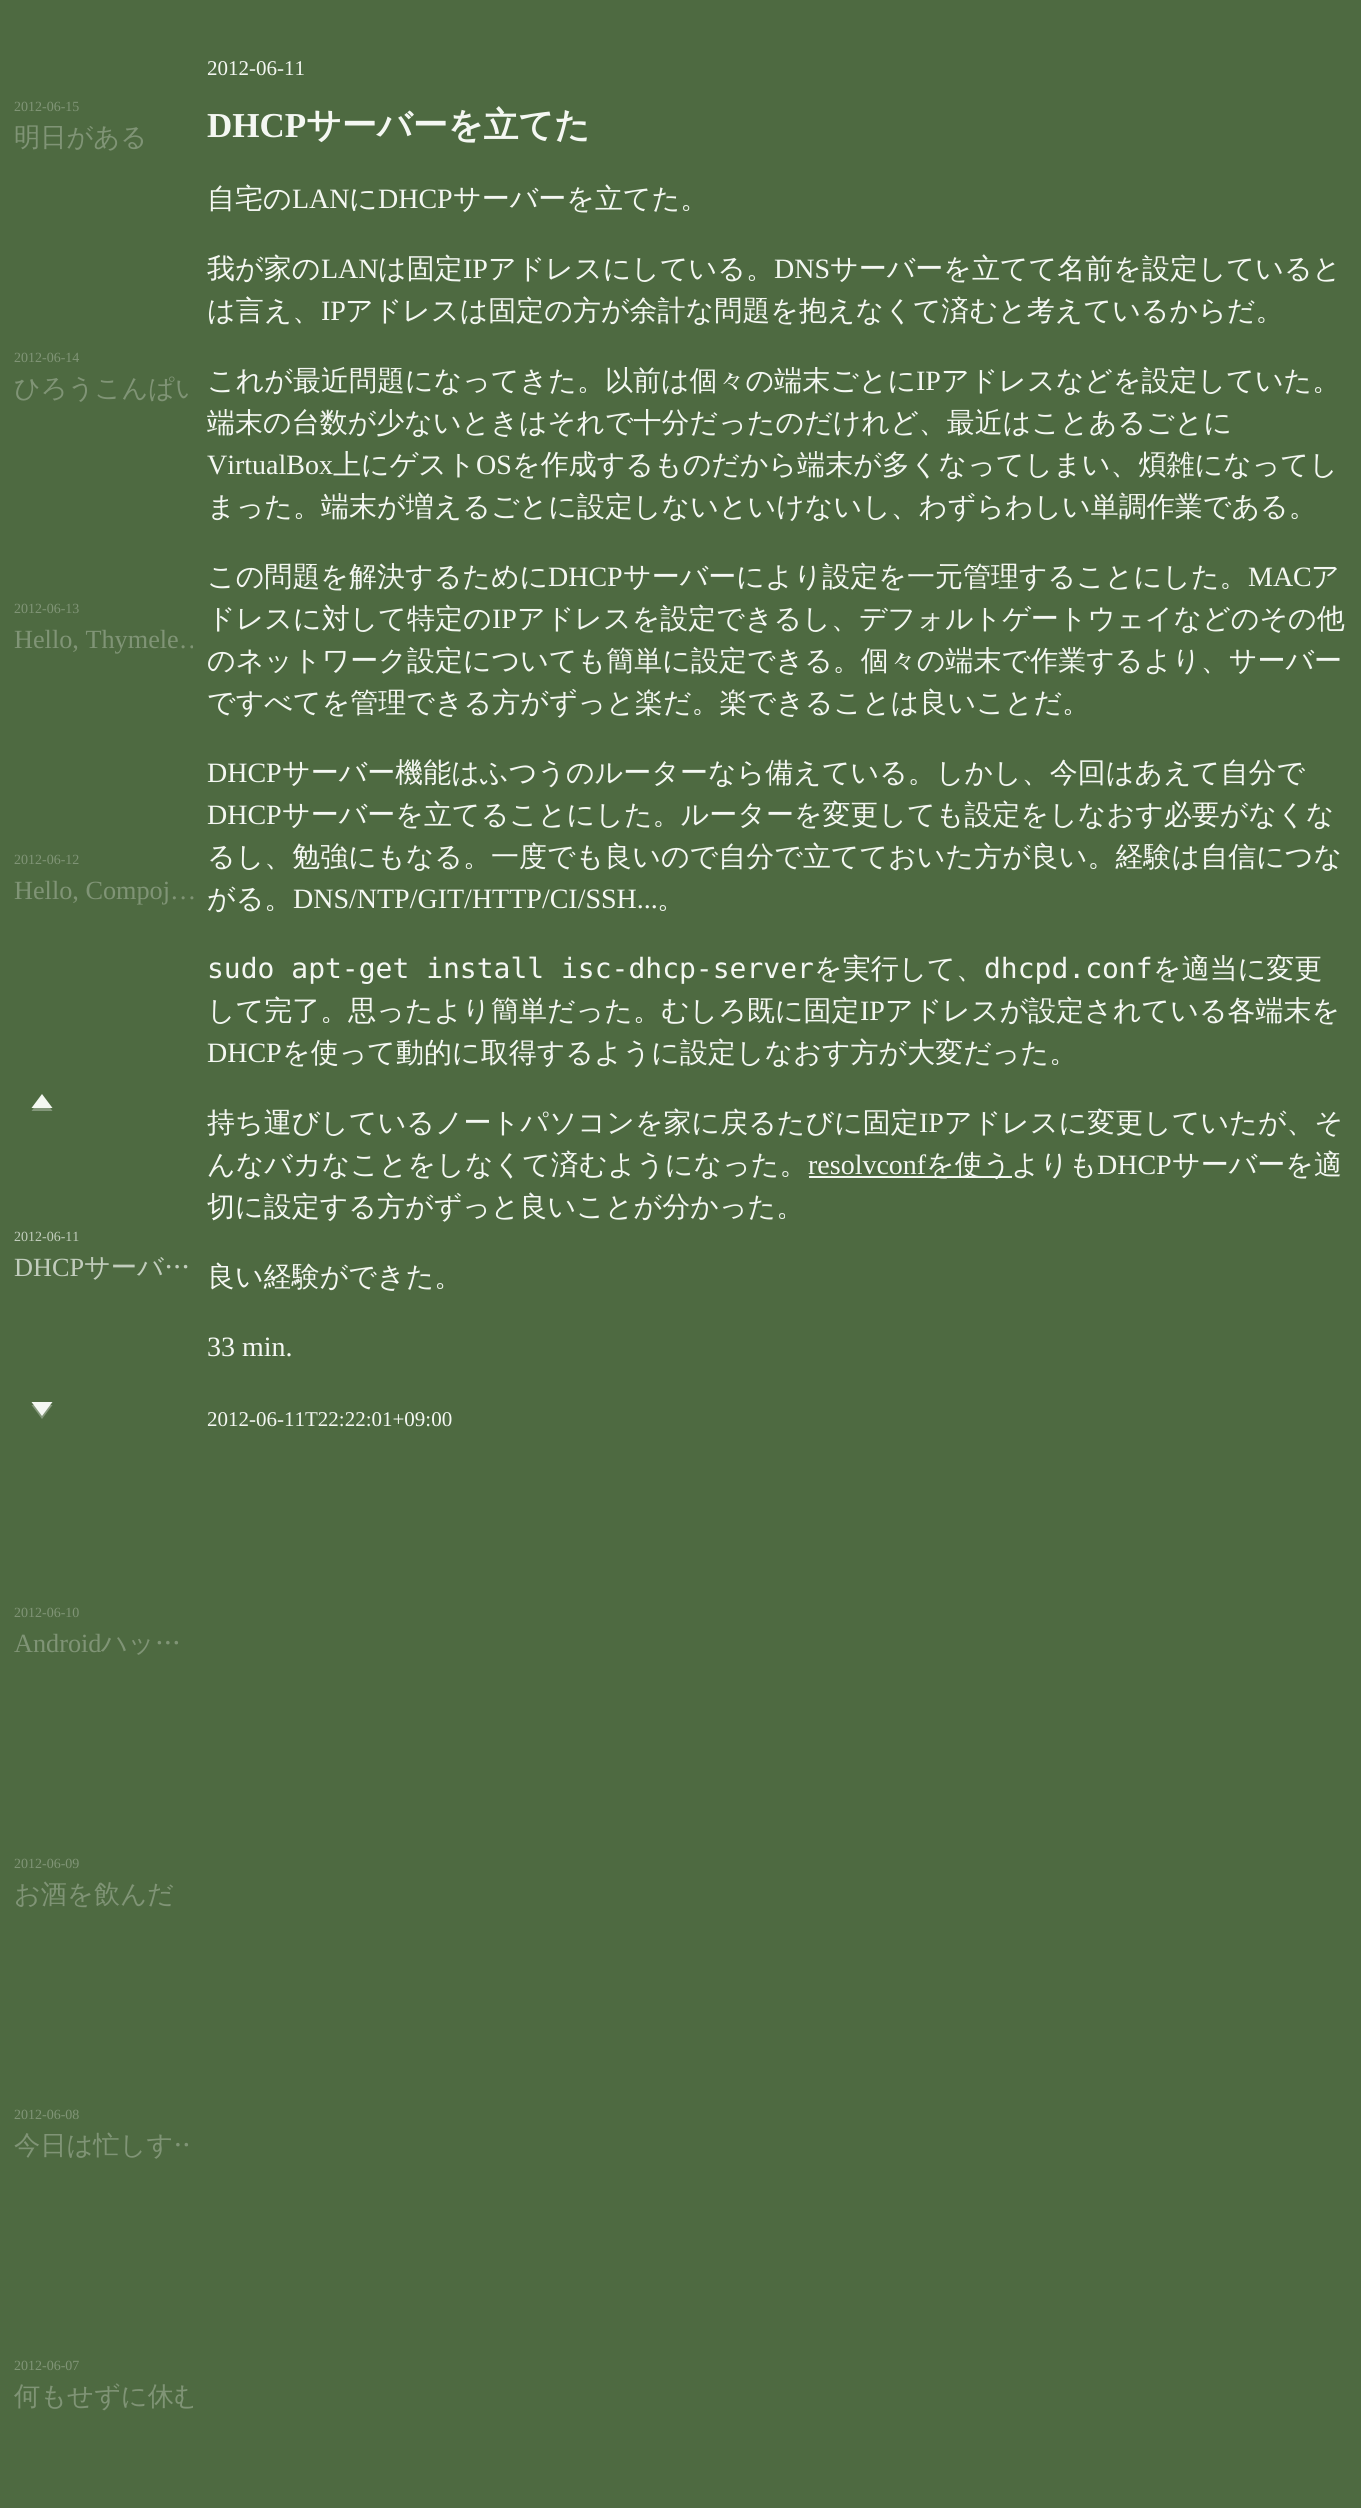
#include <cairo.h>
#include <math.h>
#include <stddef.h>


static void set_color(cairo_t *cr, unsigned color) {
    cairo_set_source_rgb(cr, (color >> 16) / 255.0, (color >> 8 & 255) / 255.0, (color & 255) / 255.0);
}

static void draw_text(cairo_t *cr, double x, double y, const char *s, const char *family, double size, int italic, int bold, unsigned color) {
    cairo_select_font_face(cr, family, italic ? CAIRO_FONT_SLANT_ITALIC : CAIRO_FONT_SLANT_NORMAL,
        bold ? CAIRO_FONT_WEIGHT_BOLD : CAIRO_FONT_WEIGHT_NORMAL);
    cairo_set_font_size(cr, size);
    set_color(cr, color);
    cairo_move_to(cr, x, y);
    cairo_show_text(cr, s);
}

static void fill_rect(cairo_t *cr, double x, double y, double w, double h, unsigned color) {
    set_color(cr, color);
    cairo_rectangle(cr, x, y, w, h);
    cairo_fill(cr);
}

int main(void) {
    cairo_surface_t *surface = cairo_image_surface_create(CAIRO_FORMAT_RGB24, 1361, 2508);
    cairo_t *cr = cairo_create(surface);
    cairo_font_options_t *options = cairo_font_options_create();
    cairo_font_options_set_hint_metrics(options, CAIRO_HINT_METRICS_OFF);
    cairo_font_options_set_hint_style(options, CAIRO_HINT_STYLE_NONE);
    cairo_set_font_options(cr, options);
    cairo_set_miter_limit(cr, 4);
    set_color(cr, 0x4E6A41);
    cairo_paint(cr);
    draw_text(cr, 14, 111, "2012-06-15", "Liberation Serif", 14, 0, 0, 0x809476);
    draw_text(cr, 14, 146, "明日がある", "WenQuanYi Zen Hei Medium", 26.25, 0, 0, 0x809476);
    draw_text(cr, 14, 362, "2012-06-14", "Liberation Serif", 14, 0, 0, 0x809476);
    cairo_save(cr);
    cairo_rectangle(cr, 14, 369, 179, 35);
    cairo_clip(cr);
    draw_text(cr, 14, 397, "ひろうこんぱい", "WenQuanYi Zen Hei Medium", 26.25, 0, 0, 0x809476);
    cairo_restore(cr);
    draw_text(cr, 14, 613, "2012-06-13", "Liberation Serif", 14, 0, 0, 0x809476);
    cairo_save(cr);
    cairo_rectangle(cr, 14, 620, 179, 35);
    cairo_clip(cr);
    draw_text(cr, 14, 648, "Hello, Thymele…", "Liberation Serif", 26.25, 0, 0, 0x809476);
    cairo_restore(cr);
    draw_text(cr, 14, 864, "2012-06-12", "Liberation Serif", 14, 0, 0, 0x809476);
    draw_text(cr, 14, 899, "Hello, Compoj…", "Liberation Serif", 26.25, 0, 0, 0x809476);
    draw_text(cr, 14, 1241, "2012-06-11", "Liberation Serif", 14, 0, 0, 0xC2CDBD);
    draw_text(cr, 14, 1276, "DHCP", "Liberation Serif", 26.25, 0, 0, 0xC2CDBD);
    draw_text(cr, 84, 1276, "サーバ…", "WenQuanYi Zen Hei Medium", 26.25, 0, 0, 0xC2CDBD);
    draw_text(cr, 14, 1617, "2012-06-10", "Liberation Serif", 14, 0, 0, 0x809476);
    draw_text(cr, 14, 1652, "Android", "Liberation Serif", 26.25, 0, 0, 0x809476);
    draw_text(cr, 101, 1652, "ハッ…", "WenQuanYi Zen Hei Medium", 26.25, 0, 0, 0x809476);
    draw_text(cr, 14, 1868, "2012-06-09", "Liberation Serif", 14, 0, 0, 0x809476);
    draw_text(cr, 14, 1903, "お酒を飲んだ", "WenQuanYi Zen Hei Medium", 26.25, 0, 0, 0x809476);
    draw_text(cr, 14, 2119, "2012-06-08", "Liberation Serif", 14, 0, 0, 0x809476);
    cairo_save(cr);
    cairo_rectangle(cr, 14, 2126, 179, 35);
    cairo_clip(cr);
    draw_text(cr, 14, 2154, "今日は忙しす…", "WenQuanYi Zen Hei Medium", 26.25, 0, 0, 0x809476);
    cairo_restore(cr);
    draw_text(cr, 14, 2370, "2012-06-07", "Liberation Serif", 14, 0, 0, 0x809476);
    cairo_save(cr);
    cairo_rectangle(cr, 14, 2377, 179, 35);
    cairo_clip(cr);
    draw_text(cr, 14, 2405, "何もせずに休む", "WenQuanYi Zen Hei Medium", 26.25, 0, 0, 0x809476);
    cairo_restore(cr);
    draw_text(cr, 207, 75, "2012-06-11", "Liberation Serif", 21, 0, 0, 0xF4F7F2);
    draw_text(cr, 207, 137, "DHCP", "Liberation Serif", 35, 0, 1, 0xF4F7F2);
    draw_text(cr, 306, 137, "サーバーを立てた", "WenQuanYi Zen Hei", 35, 0, 1, 0xF4F7F2);
    draw_text(cr, 207, 208, "自宅の", "WenQuanYi Zen Hei Medium", 28, 0, 0, 0xF4F7F2);
    draw_text(cr, 292, 208, "LAN", "Liberation Serif", 28, 0, 0, 0xF4F7F2);
    draw_text(cr, 349, 208, "に", "WenQuanYi Zen Hei Medium", 28, 0, 0, 0xF4F7F2);
    draw_text(cr, 378, 208, "DHCP", "Liberation Serif", 28, 0, 0, 0xF4F7F2);
    draw_text(cr, 453, 208, "サーバーを立てた。", "WenQuanYi Zen Hei Medium", 28, 0, 0, 0xF4F7F2);
    draw_text(cr, 207, 278, "我が家の", "WenQuanYi Zen Hei Medium", 28, 0, 0, 0xF4F7F2);
    draw_text(cr, 321, 278, "LAN", "Liberation Serif", 28, 0, 0, 0xF4F7F2);
    draw_text(cr, 378, 278, "は固定", "WenQuanYi Zen Hei Medium", 28, 0, 0, 0xF4F7F2);
    draw_text(cr, 463, 278, "IP", "Liberation Serif", 28, 0, 0, 0xF4F7F2);
    draw_text(cr, 488, 278, "アドレスにしている。", "WenQuanYi Zen Hei Medium", 28, 0, 0, 0xF4F7F2);
    draw_text(cr, 774, 278, "DNS", "Liberation Serif", 28, 0, 0, 0xF4F7F2);
    draw_text(cr, 830, 278, "サーバーを立てて名前を設定していると", "WenQuanYi Zen Hei Medium", 28, 0, 0, 0xF4F7F2);
    draw_text(cr, 207, 320, "は言え、", "WenQuanYi Zen Hei Medium", 28, 0, 0, 0xF4F7F2);
    draw_text(cr, 321, 320, "IP", "Liberation Serif", 28, 0, 0, 0xF4F7F2);
    draw_text(cr, 345, 320, "アドレスは固定の方が余計な問題を抱えなくて済むと考えているからだ。", "WenQuanYi Zen Hei Medium", 28, 0, 0, 0xF4F7F2);
    draw_text(cr, 207, 390, "これが最近問題になってきた。以前は個々の端末ごとに", "WenQuanYi Zen Hei Medium", 28, 0, 0, 0xF4F7F2);
    draw_text(cr, 916, 390, "IP", "Liberation Serif", 28, 0, 0, 0xF4F7F2);
    draw_text(cr, 941, 390, "アドレスなどを設定していた。", "WenQuanYi Zen Hei Medium", 28, 0, 0, 0xF4F7F2);
    draw_text(cr, 207, 432, "端末の台数が少ないときはそれで十分だったのだけれど、最近はことあるごとに", "WenQuanYi Zen Hei Medium", 28, 0, 0, 0xF4F7F2);
    draw_text(cr, 207, 474, "VirtualBox", "Liberation Serif", 28, 0, 0, 0xF4F7F2);
    draw_text(cr, 333, 474, "上にゲスト", "WenQuanYi Zen Hei Medium", 28, 0, 0, 0xF4F7F2);
    draw_text(cr, 476, 474, "OS", "Liberation Serif", 28, 0, 0, 0xF4F7F2);
    draw_text(cr, 512, 474, "を作成するものだから端末が多くなってしまい、煩雑になってし", "WenQuanYi Zen Hei Medium", 28, 0, 0, 0xF4F7F2);
    draw_text(cr, 207, 516, "まった。端末が増えるごとに設定しないといけないし、わずらわしい単調作業である。", "WenQuanYi Zen Hei Medium", 28, 0, 0, 0xF4F7F2);
    draw_text(cr, 207, 586, "この問題を解決するために", "WenQuanYi Zen Hei Medium", 28, 0, 0, 0xF4F7F2);
    draw_text(cr, 548, 586, "DHCP", "Liberation Serif", 28, 0, 0, 0xF4F7F2);
    draw_text(cr, 623, 586, "サーバーにより設定を一元管理することにした。", "WenQuanYi Zen Hei Medium", 28, 0, 0, 0xF4F7F2);
    draw_text(cr, 1248, 586, "MAC", "Liberation Serif", 28, 0, 0, 0xF4F7F2);
    draw_text(cr, 1311, 586, "ア", "WenQuanYi Zen Hei Medium", 28, 0, 0, 0xF4F7F2);
    draw_text(cr, 207, 628, "ドレスに対して特定の", "WenQuanYi Zen Hei Medium", 28, 0, 0, 0xF4F7F2);
    draw_text(cr, 492, 628, "IP", "Liberation Serif", 28, 0, 0, 0xF4F7F2);
    draw_text(cr, 517, 628, "アドレスを設定できるし、デフォルトゲートウェイなどのその他", "WenQuanYi Zen Hei Medium", 28, 0, 0, 0xF4F7F2);
    draw_text(cr, 207, 670, "のネットワーク設定についても簡単に設定できる。個々の端末で作業するより、サーバー", "WenQuanYi Zen Hei Medium", 28, 0, 0, 0xF4F7F2);
    draw_text(cr, 207, 712, "ですべてを管理できる方がずっと楽だ。楽できることは良いことだ。", "WenQuanYi Zen Hei Medium", 28, 0, 0, 0xF4F7F2);
    draw_text(cr, 207, 782, "DHCP", "Liberation Serif", 28, 0, 0, 0xF4F7F2);
    draw_text(cr, 282, 782, "サーバー機能はふつうのルーターなら備えている。しかし、今回はあえて自分で", "WenQuanYi Zen Hei Medium", 28, 0, 0, 0xF4F7F2);
    draw_text(cr, 207, 824, "DHCP", "Liberation Serif", 28, 0, 0, 0xF4F7F2);
    draw_text(cr, 282, 824, "サーバーを立てることにした。ルーターを変更しても設定をしなおす必要がなくな", "WenQuanYi Zen Hei Medium", 28, 0, 0, 0xF4F7F2);
    draw_text(cr, 207, 866, "るし、勉強にもなる。一度でも良いので自分で立てておいた方が良い。経験は自信につな", "WenQuanYi Zen Hei Medium", 28, 0, 0, 0xF4F7F2);
    draw_text(cr, 207, 908, "がる。", "WenQuanYi Zen Hei Medium", 28, 0, 0, 0xF4F7F2);
    draw_text(cr, 293, 908, "DNS/NTP/GIT/HTTP/CI/SSH...", "Liberation Serif", 28, 0, 0, 0xF4F7F2);
    draw_text(cr, 657, 908, "。", "WenQuanYi Zen Hei Medium", 28, 0, 0, 0xF4F7F2);
    draw_text(cr, 207, 978, "sudo apt-get install isc-dhcp-server", "DejaVu Sans Mono", 28, 0, 0, 0xF4F7F2);
    draw_text(cr, 814, 978, "を実行して、", "WenQuanYi Zen Hei Medium", 28, 0, 0, 0xF4F7F2);
    draw_text(cr, 984, 978, "dhcpd.conf", "DejaVu Sans Mono", 28, 0, 0, 0xF4F7F2);
    draw_text(cr, 1153, 978, "を適当に変更", "WenQuanYi Zen Hei Medium", 28, 0, 0, 0xF4F7F2);
    draw_text(cr, 207, 1020, "して完了。思ったより簡単だった。むしろ既に固定", "WenQuanYi Zen Hei Medium", 28, 0, 0, 0xF4F7F2);
    draw_text(cr, 860, 1020, "IP", "Liberation Serif", 28, 0, 0, 0xF4F7F2);
    draw_text(cr, 885, 1020, "アドレスが設定されている各端末を", "WenQuanYi Zen Hei Medium", 28, 0, 0, 0xF4F7F2);
    draw_text(cr, 207, 1062, "DHCP", "Liberation Serif", 28, 0, 0, 0xF4F7F2);
    draw_text(cr, 282, 1062, "を使って動的に取得するように設定しなおす方が大変だった。", "WenQuanYi Zen Hei Medium", 28, 0, 0, 0xF4F7F2);
    draw_text(cr, 207, 1132, "持ち運びしているノートパソコンを家に戻るたびに固定", "WenQuanYi Zen Hei Medium", 28, 0, 0, 0xF4F7F2);
    draw_text(cr, 919, 1132, "IP", "Liberation Serif", 28, 0, 0, 0xF4F7F2);
    draw_text(cr, 944, 1132, "アドレスに変更していたが、そ", "WenQuanYi Zen Hei Medium", 28, 0, 0, 0xF4F7F2);
    draw_text(cr, 207, 1174, "んなバカなことをしなくて済むようになった。", "WenQuanYi Zen Hei Medium", 28, 0, 0, 0xF4F7F2);
    draw_text(cr, 808, 1174, "resolvconf", "Liberation Serif", 28, 0, 0, 0xF4F7F2);
    fill_rect(cr, 809, 1176, 203, 2, 0xF4F7F2);
    draw_text(cr, 926, 1174, "を使うよりも", "WenQuanYi Zen Hei Medium", 28, 0, 0, 0xF4F7F2);
    draw_text(cr, 1097, 1174, "DHCP", "Liberation Serif", 28, 0, 0, 0xF4F7F2);
    draw_text(cr, 1172, 1174, "サーバーを適", "WenQuanYi Zen Hei Medium", 28, 0, 0, 0xF4F7F2);
    draw_text(cr, 207, 1216, "切に設定する方がずっと良いことが分かった。", "WenQuanYi Zen Hei Medium", 28, 0, 0, 0xF4F7F2);
    draw_text(cr, 207, 1286, "良い経験ができた。", "WenQuanYi Zen Hei Medium", 28, 0, 0, 0xF4F7F2);
    draw_text(cr, 207, 1356, "33 min.", "Liberation Serif", 28, 0, 0, 0xF4F7F2);
    draw_text(cr, 207, 1426, "2012-06-11T22:22:01+09:00", "Liberation Serif", 21, 0, 0, 0xF4F7F2);
    set_color(cr, 0x83977A);
    cairo_new_path(cr);
    cairo_move_to(cr, 52.5, 1111);
    cairo_line_to(cr, 31.5, 1111);
    cairo_line_to(cr, 42, 1097);
    cairo_close_path(cr);
    cairo_fill(cr);
    set_color(cr, 0xF4F7F2);
    cairo_new_path(cr);
    cairo_move_to(cr, 52.5, 1108);
    cairo_line_to(cr, 31.5, 1108);
    cairo_line_to(cr, 42, 1094);
    cairo_close_path(cr);
    cairo_fill(cr);
    set_color(cr, 0x83977A);
    cairo_new_path(cr);
    cairo_move_to(cr, 31.5, 1405);
    cairo_line_to(cr, 52.5, 1405);
    cairo_line_to(cr, 42, 1419);
    cairo_close_path(cr);
    cairo_fill(cr);
    set_color(cr, 0xF4F7F2);
    cairo_new_path(cr);
    cairo_move_to(cr, 31.5, 1402);
    cairo_line_to(cr, 52.5, 1402);
    cairo_line_to(cr, 42, 1416);
    cairo_close_path(cr);
    cairo_fill(cr);
    cairo_surface_write_to_png(surface, "output.png");
    cairo_font_options_destroy(options);
    cairo_destroy(cr);
    cairo_surface_destroy(surface);
    return 0;
}
